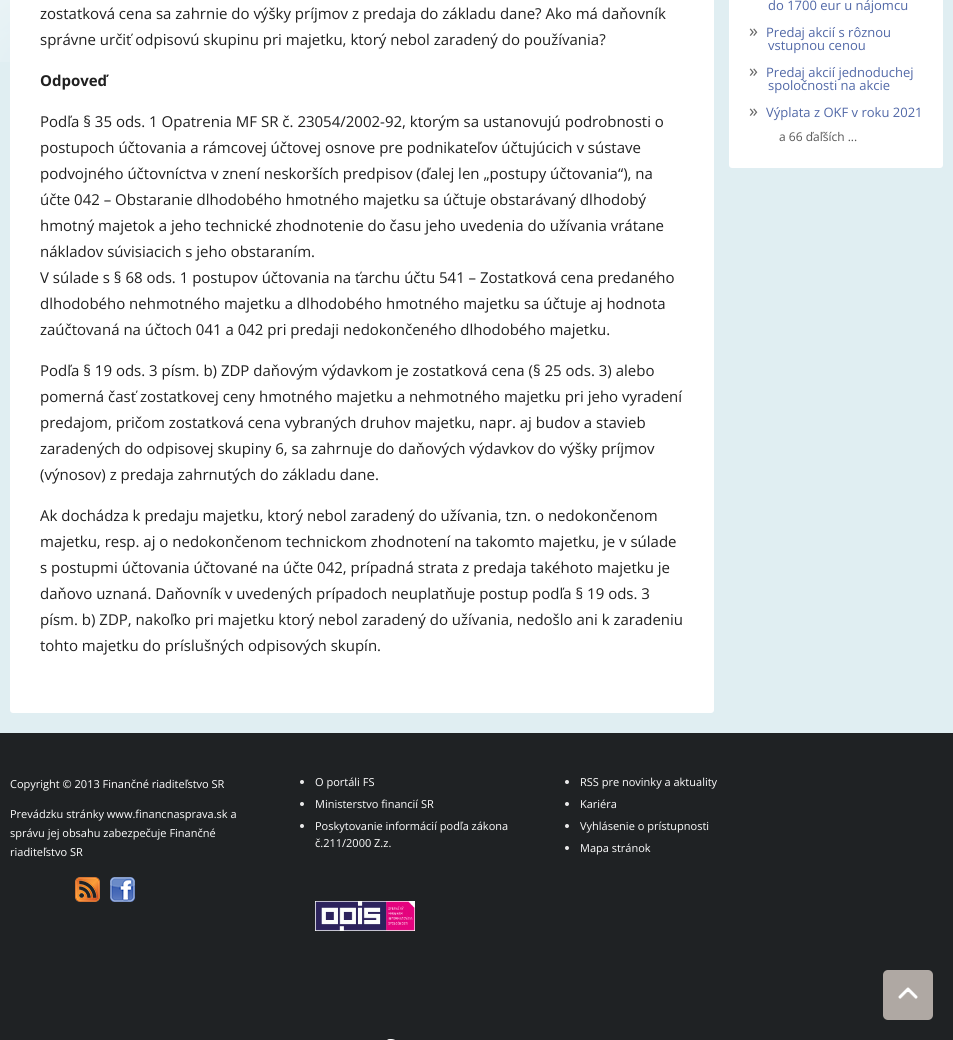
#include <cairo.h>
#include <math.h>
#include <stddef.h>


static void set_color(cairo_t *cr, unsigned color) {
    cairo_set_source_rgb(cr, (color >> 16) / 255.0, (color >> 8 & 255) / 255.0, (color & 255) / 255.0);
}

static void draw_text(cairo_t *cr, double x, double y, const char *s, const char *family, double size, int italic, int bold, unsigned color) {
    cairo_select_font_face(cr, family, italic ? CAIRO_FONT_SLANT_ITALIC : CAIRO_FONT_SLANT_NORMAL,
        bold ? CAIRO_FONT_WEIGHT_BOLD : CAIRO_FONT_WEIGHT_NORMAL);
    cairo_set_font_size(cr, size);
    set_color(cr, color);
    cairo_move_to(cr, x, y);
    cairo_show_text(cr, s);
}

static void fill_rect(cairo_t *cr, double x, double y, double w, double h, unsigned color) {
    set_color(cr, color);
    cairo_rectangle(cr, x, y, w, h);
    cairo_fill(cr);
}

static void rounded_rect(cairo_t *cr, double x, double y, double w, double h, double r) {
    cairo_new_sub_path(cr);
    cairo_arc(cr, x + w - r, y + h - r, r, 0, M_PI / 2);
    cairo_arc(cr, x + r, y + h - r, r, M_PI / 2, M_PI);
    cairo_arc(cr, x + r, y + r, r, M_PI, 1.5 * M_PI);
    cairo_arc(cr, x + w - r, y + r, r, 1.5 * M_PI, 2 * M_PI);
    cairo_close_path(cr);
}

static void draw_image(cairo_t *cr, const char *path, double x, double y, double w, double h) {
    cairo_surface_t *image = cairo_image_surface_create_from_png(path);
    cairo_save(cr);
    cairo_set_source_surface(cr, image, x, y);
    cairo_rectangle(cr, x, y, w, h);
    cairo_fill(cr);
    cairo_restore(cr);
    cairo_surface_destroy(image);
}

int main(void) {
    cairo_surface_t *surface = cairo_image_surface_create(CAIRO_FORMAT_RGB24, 953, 1040);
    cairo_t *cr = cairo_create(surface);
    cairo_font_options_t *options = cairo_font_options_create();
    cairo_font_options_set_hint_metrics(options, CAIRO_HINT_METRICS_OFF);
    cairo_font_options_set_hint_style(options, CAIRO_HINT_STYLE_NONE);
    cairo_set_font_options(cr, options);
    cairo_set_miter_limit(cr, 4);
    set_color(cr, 0x1F2224);
    cairo_paint(cr);
    fill_rect(cr, 0, 0, 953, 733, 0xE0EEF2);
    draw_image(cr, "assets/img1.png", 0, 0, 10, 62);
    set_color(cr, 0xFFFFFF);
    rounded_rect(cr, 10, -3, 704, 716, 3);
    cairo_fill(cr);
    draw_text(cr, 40, 19, "zostatková cena sa zahrnie do výšky príjmov z predaja do základu dane? Ako má daňovník", "Open Sans", 15, 0, 0, 0x202020);
    draw_text(cr, 40, 45, "správne určiť odpisovú skupinu pri majetku, ktorý nebol zaradený do používania?", "Open Sans", 15, 0, 0, 0x202020);
    draw_text(cr, 40, 86, "Odpoveď", "Open Sans", 15, 0, 1, 0x202020);
    draw_text(cr, 40, 127, "Podľa § 35 ods. 1 Opatrenia MF SR č. 23054/2002-92, ktorým sa ustanovujú podrobnosti o", "Open Sans", 15, 0, 0, 0x202020);
    draw_text(cr, 40, 153, "postupoch účtovania a rámcovej účtovej osnove pre podnikateľov účtujúcich v sústave", "Open Sans", 15, 0, 0, 0x202020);
    draw_text(cr, 40, 179, "podvojného účtovníctva v znení neskorších predpisov (ďalej len „postupy účtovania“), na", "Open Sans", 15, 0, 0, 0x202020);
    draw_text(cr, 40, 205, "účte 042 – Obstaranie dlhodobého hmotného majetku sa účtuje obstarávaný dlhodobý", "Open Sans", 15, 0, 0, 0x202020);
    draw_text(cr, 40, 231, "hmotný majetok a jeho technické zhodnotenie do času jeho uvedenia do užívania vrátane", "Open Sans", 15, 0, 0, 0x202020);
    draw_text(cr, 40, 257, "nákladov súvisiacich s jeho obstaraním.", "Open Sans", 15, 0, 0, 0x202020);
    draw_text(cr, 40, 283, "V súlade s § 68 ods. 1 postupov účtovania na ťarchu účtu 541 – Zostatková cena predaného", "Open Sans", 15, 0, 0, 0x202020);
    draw_text(cr, 40, 309, "dlhodobého nehmotného majetku a dlhodobého hmotného majetku sa účtuje aj hodnota", "Open Sans", 15, 0, 0, 0x202020);
    draw_text(cr, 40, 335, "zaúčtovaná na účtoch 041 a 042 pri predaji nedokončeného dlhodobého majetku.", "Open Sans", 15, 0, 0, 0x202020);
    draw_text(cr, 40, 376, "Podľa § 19 ods. 3 písm. b) ZDP daňovým výdavkom je zostatková cena (§ 25 ods. 3) alebo", "Open Sans", 15, 0, 0, 0x202020);
    draw_text(cr, 40, 402, "pomerná časť zostatkovej ceny hmotného majetku a nehmotného majetku pri jeho vyradení", "Open Sans", 15, 0, 0, 0x202020);
    draw_text(cr, 40, 428, "predajom, pričom zostatková cena vybraných druhov majetku, napr. aj budov a stavieb", "Open Sans", 15, 0, 0, 0x202020);
    draw_text(cr, 40, 454, "zaradených do odpisovej skupiny 6, sa zahrnuje do daňových výdavkov do výšky príjmov", "Open Sans", 15, 0, 0, 0x202020);
    draw_text(cr, 40, 480, "(výnosov) z predaja zahrnutých do základu dane.", "Open Sans", 15, 0, 0, 0x202020);
    draw_text(cr, 40, 521, "Ak dochádza k predaju majetku, ktorý nebol zaradený do užívania, tzn. o nedokončenom", "Open Sans", 15, 0, 0, 0x202020);
    draw_text(cr, 40, 547, "majetku, resp. aj o nedokončenom technickom zhodnotení na takomto majetku, je v súlade", "Open Sans", 15, 0, 0, 0x202020);
    draw_text(cr, 40, 573, "s postupmi účtovania účtované na účte 042, prípadná strata z predaja takéhoto majetku je", "Open Sans", 15, 0, 0, 0x202020);
    draw_text(cr, 40, 599, "daňovo uznaná. Daňovník v uvedených prípadoch neuplatňuje postup podľa § 19 ods. 3", "Open Sans", 15, 0, 0, 0x202020);
    draw_text(cr, 40, 625, "písm. b) ZDP, nakoľko pri majetku ktorý nebol zaradený do užívania, nedošlo ani k zaradeniu", "Open Sans", 15, 0, 0, 0x202020);
    draw_text(cr, 40, 651, "tohto majetku do príslušných odpisových skupín.", "Open Sans", 15, 0, 0, 0x202020);
    set_color(cr, 0xFFFFFF);
    rounded_rect(cr, 729, -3, 214, 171, 3);
    cairo_fill(cr);
    draw_text(cr, 768, 10, "do 1700 eur u nájomcu", "Open Sans", 13, 0, 0, 0x5168A7);
    draw_text(cr, 749, 37, "»", "Open Sans", 18, 0, 0, 0x666666);
    draw_text(cr, 766, 37, "Predaj akcií s rôznou", "Open Sans", 13, 0, 0, 0x5168A7);
    draw_text(cr, 768, 50, "vstupnou cenou", "Open Sans", 13, 0, 0, 0x5168A7);
    draw_text(cr, 749, 77, "»", "Open Sans", 18, 0, 0, 0x666666);
    draw_text(cr, 766, 77, "Predaj akcií jednoduchej", "Open Sans", 13, 0, 0, 0x5168A7);
    draw_text(cr, 768, 90, "spoločnosti na akcie", "Open Sans", 13, 0, 0, 0x5168A7);
    draw_text(cr, 749, 117, "»", "Open Sans", 18, 0, 0, 0x666666);
    draw_text(cr, 766, 117, "Výplata z OKF v roku 2021", "Open Sans", 13, 0, 0, 0x5168A7);
    draw_text(cr, 779, 141, "a 66 ďaľších ...", "Open Sans", 12, 0, 0, 0x555555);
    draw_text(cr, 10, 788, "Copyright © 2013 Finančné riaditeľstvo SR", "Open Sans", 11, 0, 0, 0xFFFFFF);
    draw_text(cr, 10, 818, "Prevádzku stránky www.financnasprava.sk a", "Open Sans", 11, 0, 0, 0xFFFFFF);
    draw_text(cr, 10, 837, "správu jej obsahu zabezpečuje Finančné", "Open Sans", 11, 0, 0, 0xFFFFFF);
    draw_text(cr, 10, 856, "riaditeľstvo SR", "Open Sans", 11, 0, 0, 0xFFFFFF);
    draw_image(cr, "assets/img2.png", 75, 877, 25, 25);
    draw_image(cr, "assets/img3.png", 110, 877, 25, 25);
    set_color(cr, 0xEAEAEA);
    cairo_arc(cr, 302, 782, 2, 0, 2 * M_PI);
    cairo_fill(cr);
    draw_text(cr, 315, 786, "O portáli FS", "Open Sans", 11, 0, 0, 0xFFFFFF);
    set_color(cr, 0xEAEAEA);
    cairo_new_path(cr);
    cairo_arc(cr, 302, 804, 2, 0, 2 * M_PI);
    cairo_fill(cr);
    draw_text(cr, 315, 808, "Ministerstvo financií SR", "Open Sans", 11, 0, 0, 0xFFFFFF);
    set_color(cr, 0xEAEAEA);
    cairo_new_path(cr);
    cairo_arc(cr, 302, 826, 2, 0, 2 * M_PI);
    cairo_fill(cr);
    draw_text(cr, 315, 830, "Poskytovanie informácií podľa zákona", "Open Sans", 11, 0, 0, 0xFFFFFF);
    draw_text(cr, 315, 847, "č.211/2000 Z.z.", "Open Sans", 11, 0, 0, 0xFFFFFF);
    set_color(cr, 0xEAEAEA);
    cairo_new_path(cr);
    cairo_arc(cr, 567, 782, 2, 0, 2 * M_PI);
    cairo_fill(cr);
    draw_text(cr, 580, 786, "RSS pre novinky a aktuality", "Open Sans", 11, 0, 0, 0xFFFFFF);
    set_color(cr, 0xEAEAEA);
    cairo_new_path(cr);
    cairo_arc(cr, 567, 804, 2, 0, 2 * M_PI);
    cairo_fill(cr);
    draw_text(cr, 580, 808, "Kariéra", "Open Sans", 11, 0, 0, 0xFFFFFF);
    set_color(cr, 0xEAEAEA);
    cairo_new_path(cr);
    cairo_arc(cr, 567, 826, 2, 0, 2 * M_PI);
    cairo_fill(cr);
    draw_text(cr, 580, 830, "Vyhlásenie o prístupnosti", "Open Sans", 11, 0, 0, 0xFFFFFF);
    set_color(cr, 0xEAEAEA);
    cairo_new_path(cr);
    cairo_arc(cr, 567, 848, 2, 0, 2 * M_PI);
    cairo_fill(cr);
    draw_text(cr, 580, 852, "Mapa stránok", "Open Sans", 11, 0, 0, 0xFFFFFF);
    draw_image(cr, "assets/img4.png", 315, 901, 100, 30);
    draw_image(cr, "assets/img5.png", 387, 1039, 8, 1);
    set_color(cr, 0xAFA8A3);
    rounded_rect(cr, 883, 970, 50, 50, 5);
    cairo_fill(cr);
    draw_image(cr, "assets/img6.png", 898, 987, 20, 12);
    cairo_surface_write_to_png(surface, "output.png");
    cairo_font_options_destroy(options);
    cairo_destroy(cr);
    cairo_surface_destroy(surface);
    return 0;
}
